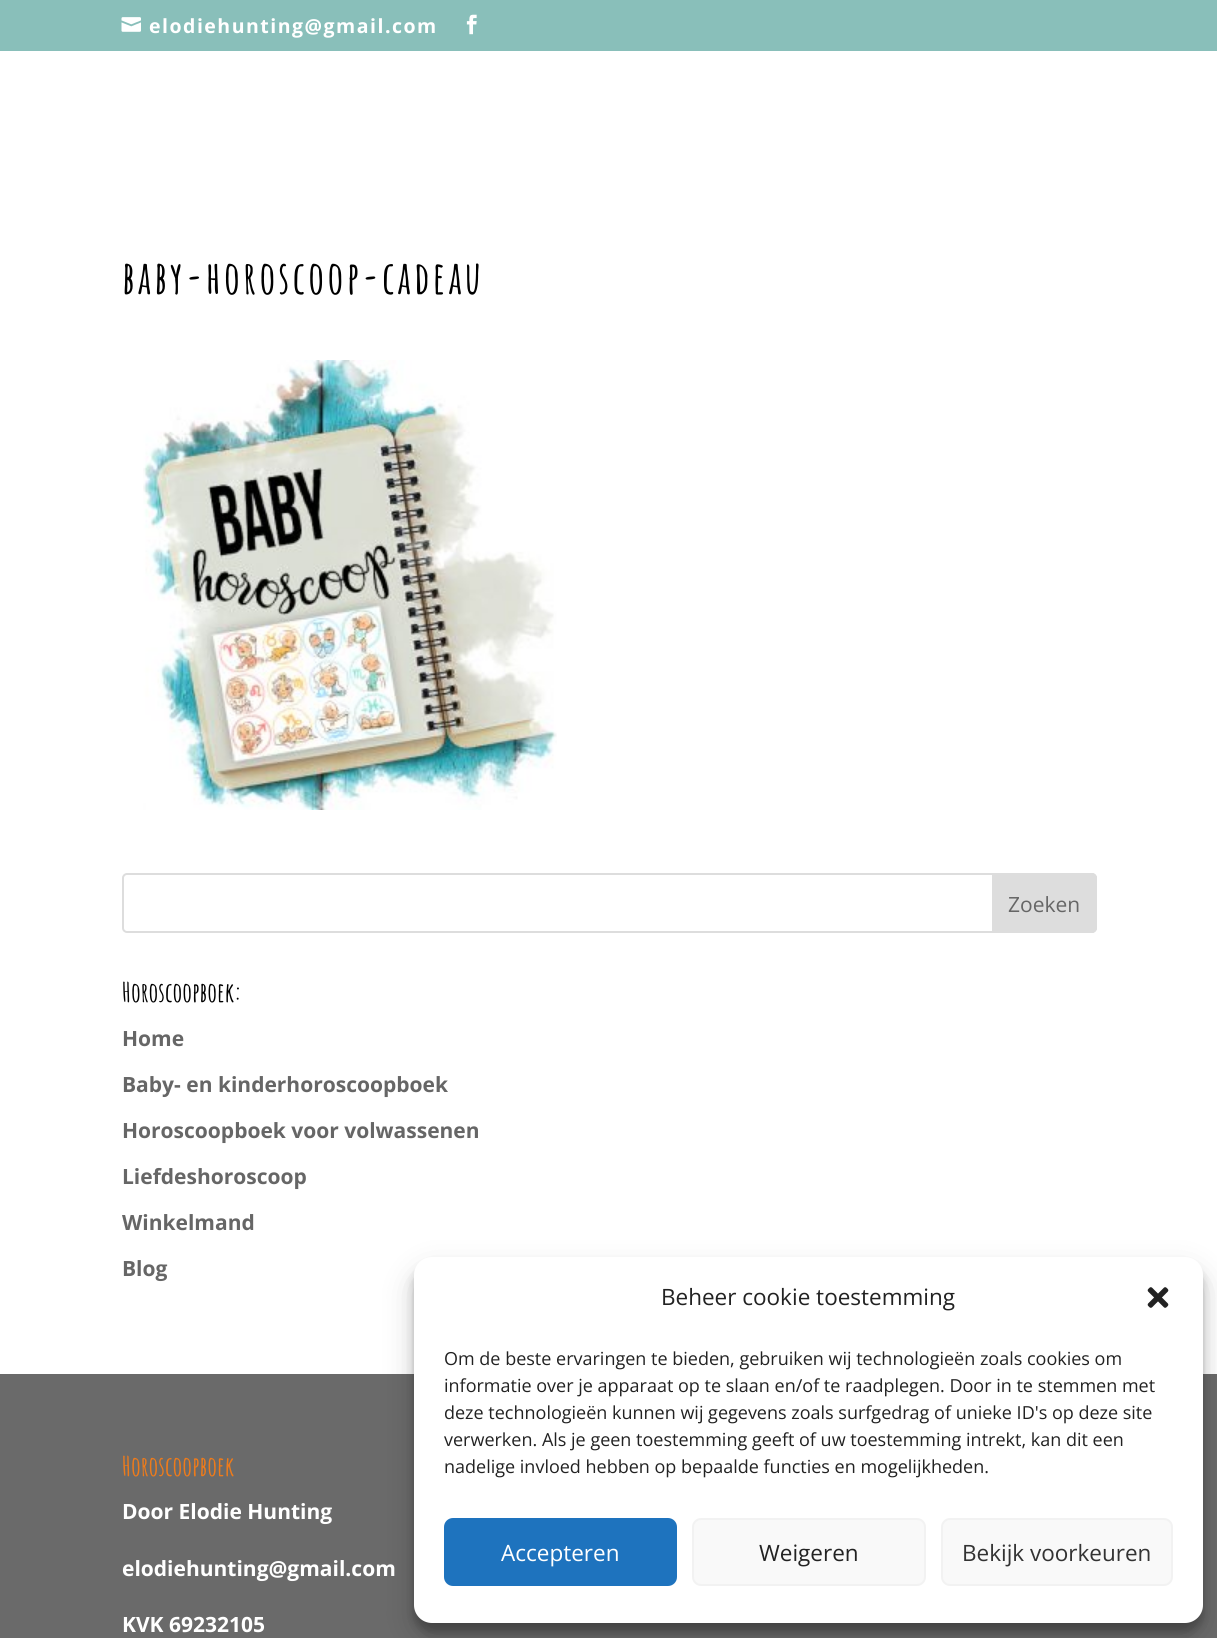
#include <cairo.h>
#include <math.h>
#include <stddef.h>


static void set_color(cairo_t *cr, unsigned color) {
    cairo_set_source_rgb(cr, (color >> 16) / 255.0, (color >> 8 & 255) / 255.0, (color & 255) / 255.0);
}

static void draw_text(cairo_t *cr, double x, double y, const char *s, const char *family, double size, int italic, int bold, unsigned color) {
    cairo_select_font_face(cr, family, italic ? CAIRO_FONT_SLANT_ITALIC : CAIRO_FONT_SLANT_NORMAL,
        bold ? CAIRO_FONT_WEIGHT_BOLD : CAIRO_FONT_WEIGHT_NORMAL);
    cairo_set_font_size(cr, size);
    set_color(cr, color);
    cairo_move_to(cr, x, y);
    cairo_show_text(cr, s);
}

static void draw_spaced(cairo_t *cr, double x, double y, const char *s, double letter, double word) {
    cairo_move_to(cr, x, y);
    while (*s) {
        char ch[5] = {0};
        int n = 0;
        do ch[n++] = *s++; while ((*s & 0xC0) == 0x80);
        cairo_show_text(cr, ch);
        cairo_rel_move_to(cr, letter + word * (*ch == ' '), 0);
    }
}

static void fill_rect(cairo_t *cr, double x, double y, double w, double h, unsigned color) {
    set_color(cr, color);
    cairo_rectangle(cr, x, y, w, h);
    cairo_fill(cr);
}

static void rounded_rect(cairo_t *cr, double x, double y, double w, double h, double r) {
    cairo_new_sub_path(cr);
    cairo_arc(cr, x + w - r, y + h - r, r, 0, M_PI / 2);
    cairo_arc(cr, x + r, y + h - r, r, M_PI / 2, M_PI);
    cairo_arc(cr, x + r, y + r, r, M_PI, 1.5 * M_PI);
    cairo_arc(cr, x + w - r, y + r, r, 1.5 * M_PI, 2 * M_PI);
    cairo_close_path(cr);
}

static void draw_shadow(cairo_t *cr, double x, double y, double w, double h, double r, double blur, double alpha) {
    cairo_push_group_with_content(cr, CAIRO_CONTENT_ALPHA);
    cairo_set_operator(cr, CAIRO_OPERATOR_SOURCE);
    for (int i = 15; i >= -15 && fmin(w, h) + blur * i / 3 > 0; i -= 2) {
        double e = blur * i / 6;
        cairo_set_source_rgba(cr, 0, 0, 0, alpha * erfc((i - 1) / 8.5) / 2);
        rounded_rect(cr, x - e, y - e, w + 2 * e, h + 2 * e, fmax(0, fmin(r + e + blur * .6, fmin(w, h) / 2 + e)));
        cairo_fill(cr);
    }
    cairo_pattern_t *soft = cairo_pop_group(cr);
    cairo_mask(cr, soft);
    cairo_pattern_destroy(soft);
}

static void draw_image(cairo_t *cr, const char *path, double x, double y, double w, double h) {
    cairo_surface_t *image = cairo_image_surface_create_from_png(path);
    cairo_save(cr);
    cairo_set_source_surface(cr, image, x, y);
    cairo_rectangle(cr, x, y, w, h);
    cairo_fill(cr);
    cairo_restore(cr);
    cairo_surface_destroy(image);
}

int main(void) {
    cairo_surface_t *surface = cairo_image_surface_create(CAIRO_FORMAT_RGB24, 1217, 1638);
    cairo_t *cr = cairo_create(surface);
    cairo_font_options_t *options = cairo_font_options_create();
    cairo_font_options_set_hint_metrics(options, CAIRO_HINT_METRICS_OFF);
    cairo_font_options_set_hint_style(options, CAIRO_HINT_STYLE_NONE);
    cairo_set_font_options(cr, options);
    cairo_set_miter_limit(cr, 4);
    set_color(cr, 0xFFFFFF);
    cairo_paint(cr);
    fill_rect(cr, 0, 0, 1217, 51, 0x89BFBA);
    draw_image(cr, "assets/img1.png", 121, 17, 20, 15);
    cairo_select_font_face(cr, "Open Sans", CAIRO_FONT_SLANT_NORMAL, CAIRO_FONT_WEIGHT_BOLD);
    cairo_set_font_size(cr, 19.5);
    set_color(cr, 0xFFFFFF);
    draw_spaced(cr, 149, 33, "elodiehunting@gmail.com", 1.5, 0);
    draw_image(cr, "assets/img2.png", 466, 14, 11, 21);
    cairo_select_font_face(cr, "Amatic SC", CAIRO_FONT_SLANT_NORMAL, CAIRO_FONT_WEIGHT_BOLD);
    cairo_set_font_size(cr, 45);
    set_color(cr, 0x000000);
    draw_spaced(cr, 122, 294, "baby-horoscoop-cadeau", 3, 0);
    draw_image(cr, "assets/img3.png", 143, 360, 414, 450);
    rounded_rect(cr, 123, 874, 973, 58, 4);
    set_color(cr, 0xDDDDDD);
    cairo_stroke(cr);
    cairo_new_path(cr);
    cairo_move_to(cr, 993, 874);
    cairo_line_to(cr, 1092, 874);
    cairo_curve_to(cr, 1094, 874, 1096, 876, 1096, 878);
    cairo_line_to(cr, 1096, 928);
    cairo_curve_to(cr, 1096, 930, 1094, 932, 1092, 932);
    cairo_line_to(cr, 993, 932);
    cairo_close_path(cr);
    cairo_fill_preserve(cr);
    cairo_stroke(cr);
    draw_text(cr, 1008, 912, "Zoeken", "Open Sans", 21, 0, 0, 0x666666);
    draw_text(cr, 122, 1002, "Horoscoopboek:", "Amatic SC", 27, 0, 1, 0x000000);
    draw_text(cr, 122, 1046, "Home", "Open Sans", 21, 0, 1, 0x666666);
    draw_text(cr, 122, 1092, "Baby- en kinderhoroscoopboek", "Open Sans", 21, 0, 1, 0x666666);
    draw_text(cr, 122, 1138, "Horoscoopboek voor volwassenen", "Open Sans", 21, 0, 1, 0x666666);
    draw_text(cr, 122, 1184, "Liefdeshoroscoop", "Open Sans", 21, 0, 1, 0x666666);
    draw_text(cr, 122, 1230, "Winkelmand", "Open Sans", 21, 0, 1, 0x666666);
    draw_text(cr, 122, 1276, "Blog", "Open Sans", 21, 0, 1, 0x666666);
    fill_rect(cr, 0, 1374, 1217, 264, 0x6A6A6A);
    draw_text(cr, 122, 1476, "Horoscoopboek", "Amatic SC", 27, 0, 1, 0xEF7B1A);
    draw_text(cr, 122, 1519, "Door Elodie Hunting", "Open Sans", 21, 0, 1, 0xFFFFFF);
    draw_text(cr, 122, 1576, "elodiehunting@gmail.com", "Open Sans", 21, 0, 1, 0xFFFFFF);
    draw_text(cr, 122, 1632, "KVK 69232105", "Open Sans", 21, 0, 1, 0xFFFFFF);
    set_color(cr, 0x000000);
    draw_shadow(cr, 414, 1266, 789, 366, 18, 4.5, 0.23);
    draw_shadow(cr, 414, 1272, 789, 366, 18, 15, 0.19);
    set_color(cr, 0xFFFFFF);
    rounded_rect(cr, 414, 1257, 789, 366, 18);
    cairo_fill(cr);
    draw_text(cr, 661, 1305, "Beheer cookie toestemming", "Open Sans", 22.5, 0, 0, 0x222222);
    draw_image(cr, "assets/img4.png", 1147, 1287, 22, 21);
    draw_text(cr, 444, 1365, "Om de beste ervaringen te bieden, gebruiken wij technologieën zoals cookies om", "Open Sans", 18, 0, 0, 0x222222);
    draw_text(cr, 444, 1392, "informatie over je apparaat op te slaan en/of te raadplegen. Door in te stemmen met", "Open Sans", 18, 0, 0, 0x222222);
    draw_text(cr, 444, 1419, "deze technologieën kunnen wij gegevens zoals surfgedrag of unieke ID's op deze site", "Open Sans", 18, 0, 0, 0x222222);
    draw_text(cr, 444, 1446, "verwerken. Als je geen toestemming geeft of uw toestemming intrekt, kan dit een", "Open Sans", 18, 0, 0, 0x222222);
    draw_text(cr, 444, 1473, "nadelige invloed hebben op bepaalde functies en mogelijkheden.", "Open Sans", 18, 0, 0, 0x222222);
    set_color(cr, 0x1E73BE);
    rounded_rect(cr, 445, 1519, 231, 66, 8);
    cairo_fill_preserve(cr);
    cairo_stroke(cr);
    draw_text(cr, 501, 1561, "Accepteren", "Open Sans", 22.5, 0, 0, 0xFFFFFF);
    set_color(cr, 0xF9F9F9);
    rounded_rect(cr, 693, 1519, 232, 66, 8);
    cairo_fill_preserve(cr);
    set_color(cr, 0xF2F2F2);
    cairo_stroke(cr);
    draw_text(cr, 759, 1561, "Weigeren", "Open Sans", 22.5, 0, 0, 0x222222);
    set_color(cr, 0xF9F9F9);
    rounded_rect(cr, 942, 1519, 230, 66, 8);
    cairo_fill_preserve(cr);
    set_color(cr, 0xF2F2F2);
    cairo_stroke(cr);
    draw_text(cr, 962, 1561, "Bekijk voorkeuren", "Open Sans", 22.5, 0, 0, 0x333333);
    cairo_surface_write_to_png(surface, "output.png");
    cairo_font_options_destroy(options);
    cairo_destroy(cr);
    cairo_surface_destroy(surface);
    return 0;
}
